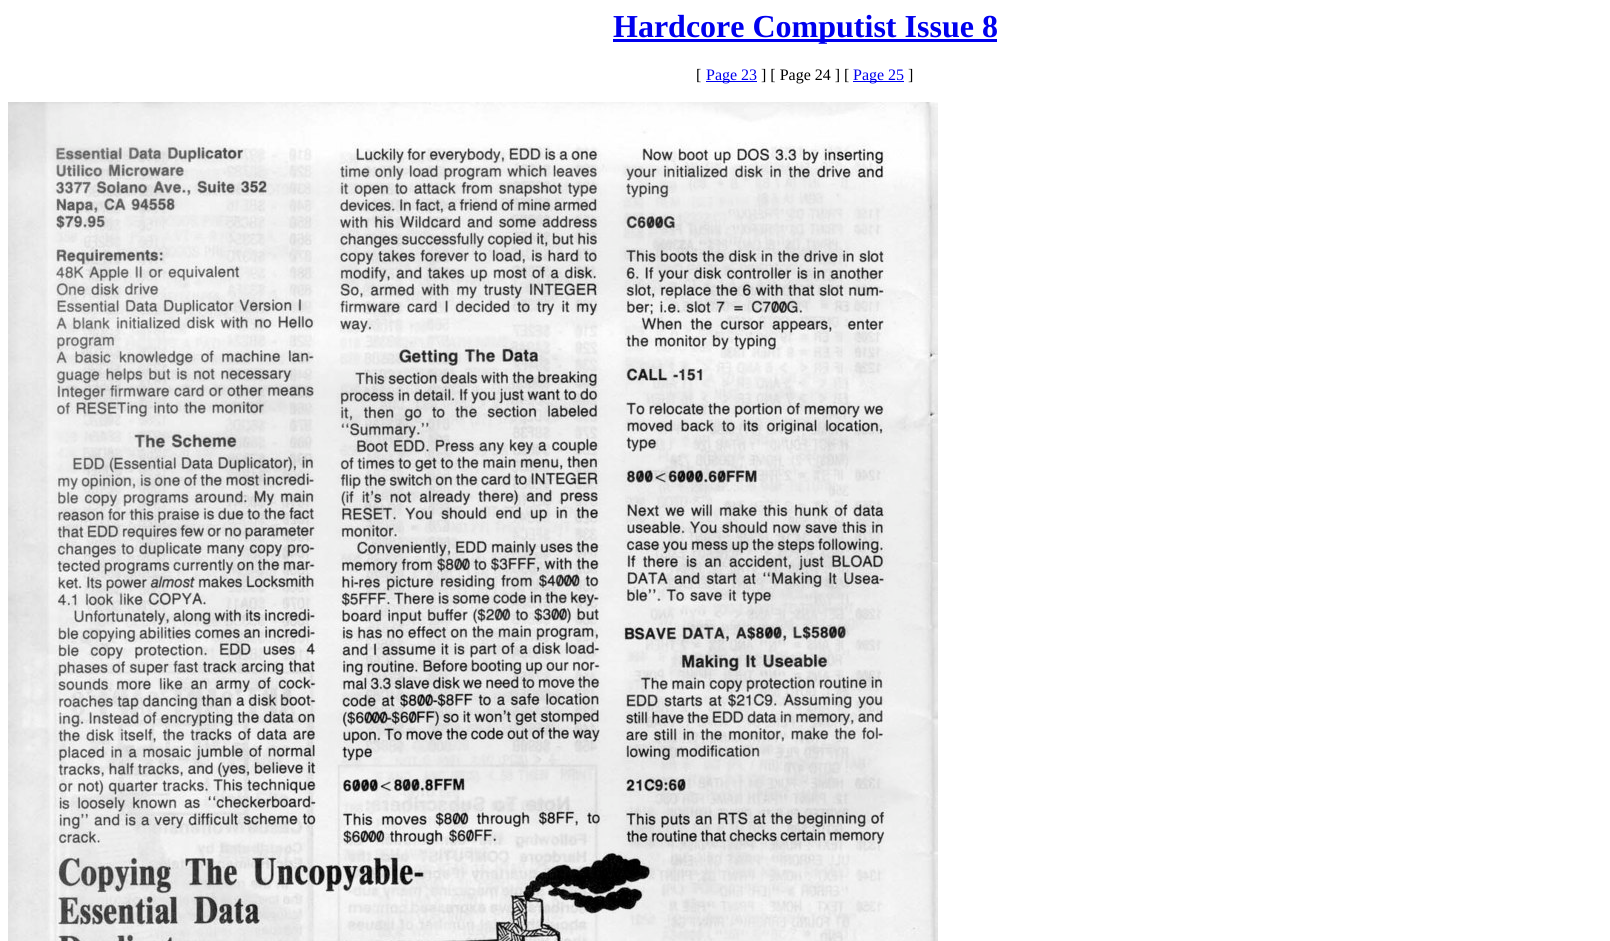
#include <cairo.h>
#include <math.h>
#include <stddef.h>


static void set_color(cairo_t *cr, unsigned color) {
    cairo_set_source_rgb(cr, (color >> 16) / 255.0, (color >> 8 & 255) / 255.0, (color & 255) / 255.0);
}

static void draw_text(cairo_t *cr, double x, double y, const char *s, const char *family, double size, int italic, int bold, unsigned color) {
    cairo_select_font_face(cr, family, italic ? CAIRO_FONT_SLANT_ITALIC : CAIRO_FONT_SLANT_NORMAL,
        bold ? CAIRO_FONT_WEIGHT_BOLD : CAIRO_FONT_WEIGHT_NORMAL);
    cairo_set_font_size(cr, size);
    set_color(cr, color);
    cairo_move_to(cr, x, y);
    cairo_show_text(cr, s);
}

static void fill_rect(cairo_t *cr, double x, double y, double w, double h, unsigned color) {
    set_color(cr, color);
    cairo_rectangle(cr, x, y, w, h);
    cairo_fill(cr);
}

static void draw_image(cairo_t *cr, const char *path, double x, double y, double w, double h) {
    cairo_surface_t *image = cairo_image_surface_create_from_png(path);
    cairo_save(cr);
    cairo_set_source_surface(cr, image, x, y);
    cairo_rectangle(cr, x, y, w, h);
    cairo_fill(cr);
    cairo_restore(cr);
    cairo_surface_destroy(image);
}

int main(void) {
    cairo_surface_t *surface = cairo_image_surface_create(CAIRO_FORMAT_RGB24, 1610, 941);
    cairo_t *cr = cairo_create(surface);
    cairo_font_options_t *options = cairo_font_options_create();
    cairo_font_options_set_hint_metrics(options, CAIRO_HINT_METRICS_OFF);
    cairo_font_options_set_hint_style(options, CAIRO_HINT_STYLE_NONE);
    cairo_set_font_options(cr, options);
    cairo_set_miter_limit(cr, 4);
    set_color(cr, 0xFFFFFF);
    cairo_paint(cr);
    fill_rect(cr, 613, 39, 384, 3, 0x0000EE);
    draw_text(cr, 613, 37, "Hardcore Computist Issue 8", "Liberation Serif", 32, 0, 1, 0x0000EE);
    draw_text(cr, 696, 80, "[", "Liberation Serif", 16, 0, 0, 0x000000);
    fill_rect(cr, 706, 81, 51, 1, 0x0000EE);
    draw_text(cr, 706, 80, "Page 23", "Liberation Serif", 16, 0, 0, 0x0000EE);
    draw_text(cr, 761, 80, "] [ Page 24 ] [", "Liberation Serif", 16, 0, 0, 0x000000);
    fill_rect(cr, 853, 81, 51, 1, 0x0000EE);
    draw_text(cr, 853, 80, "Page 25", "Liberation Serif", 16, 0, 0, 0x0000EE);
    draw_text(cr, 908, 80, "]", "Liberation Serif", 16, 0, 0, 0x000000);
    draw_image(cr, "assets/img1.png", 8, 102, 930, 839);
    cairo_surface_write_to_png(surface, "output.png");
    cairo_font_options_destroy(options);
    cairo_destroy(cr);
    cairo_surface_destroy(surface);
    return 0;
}
